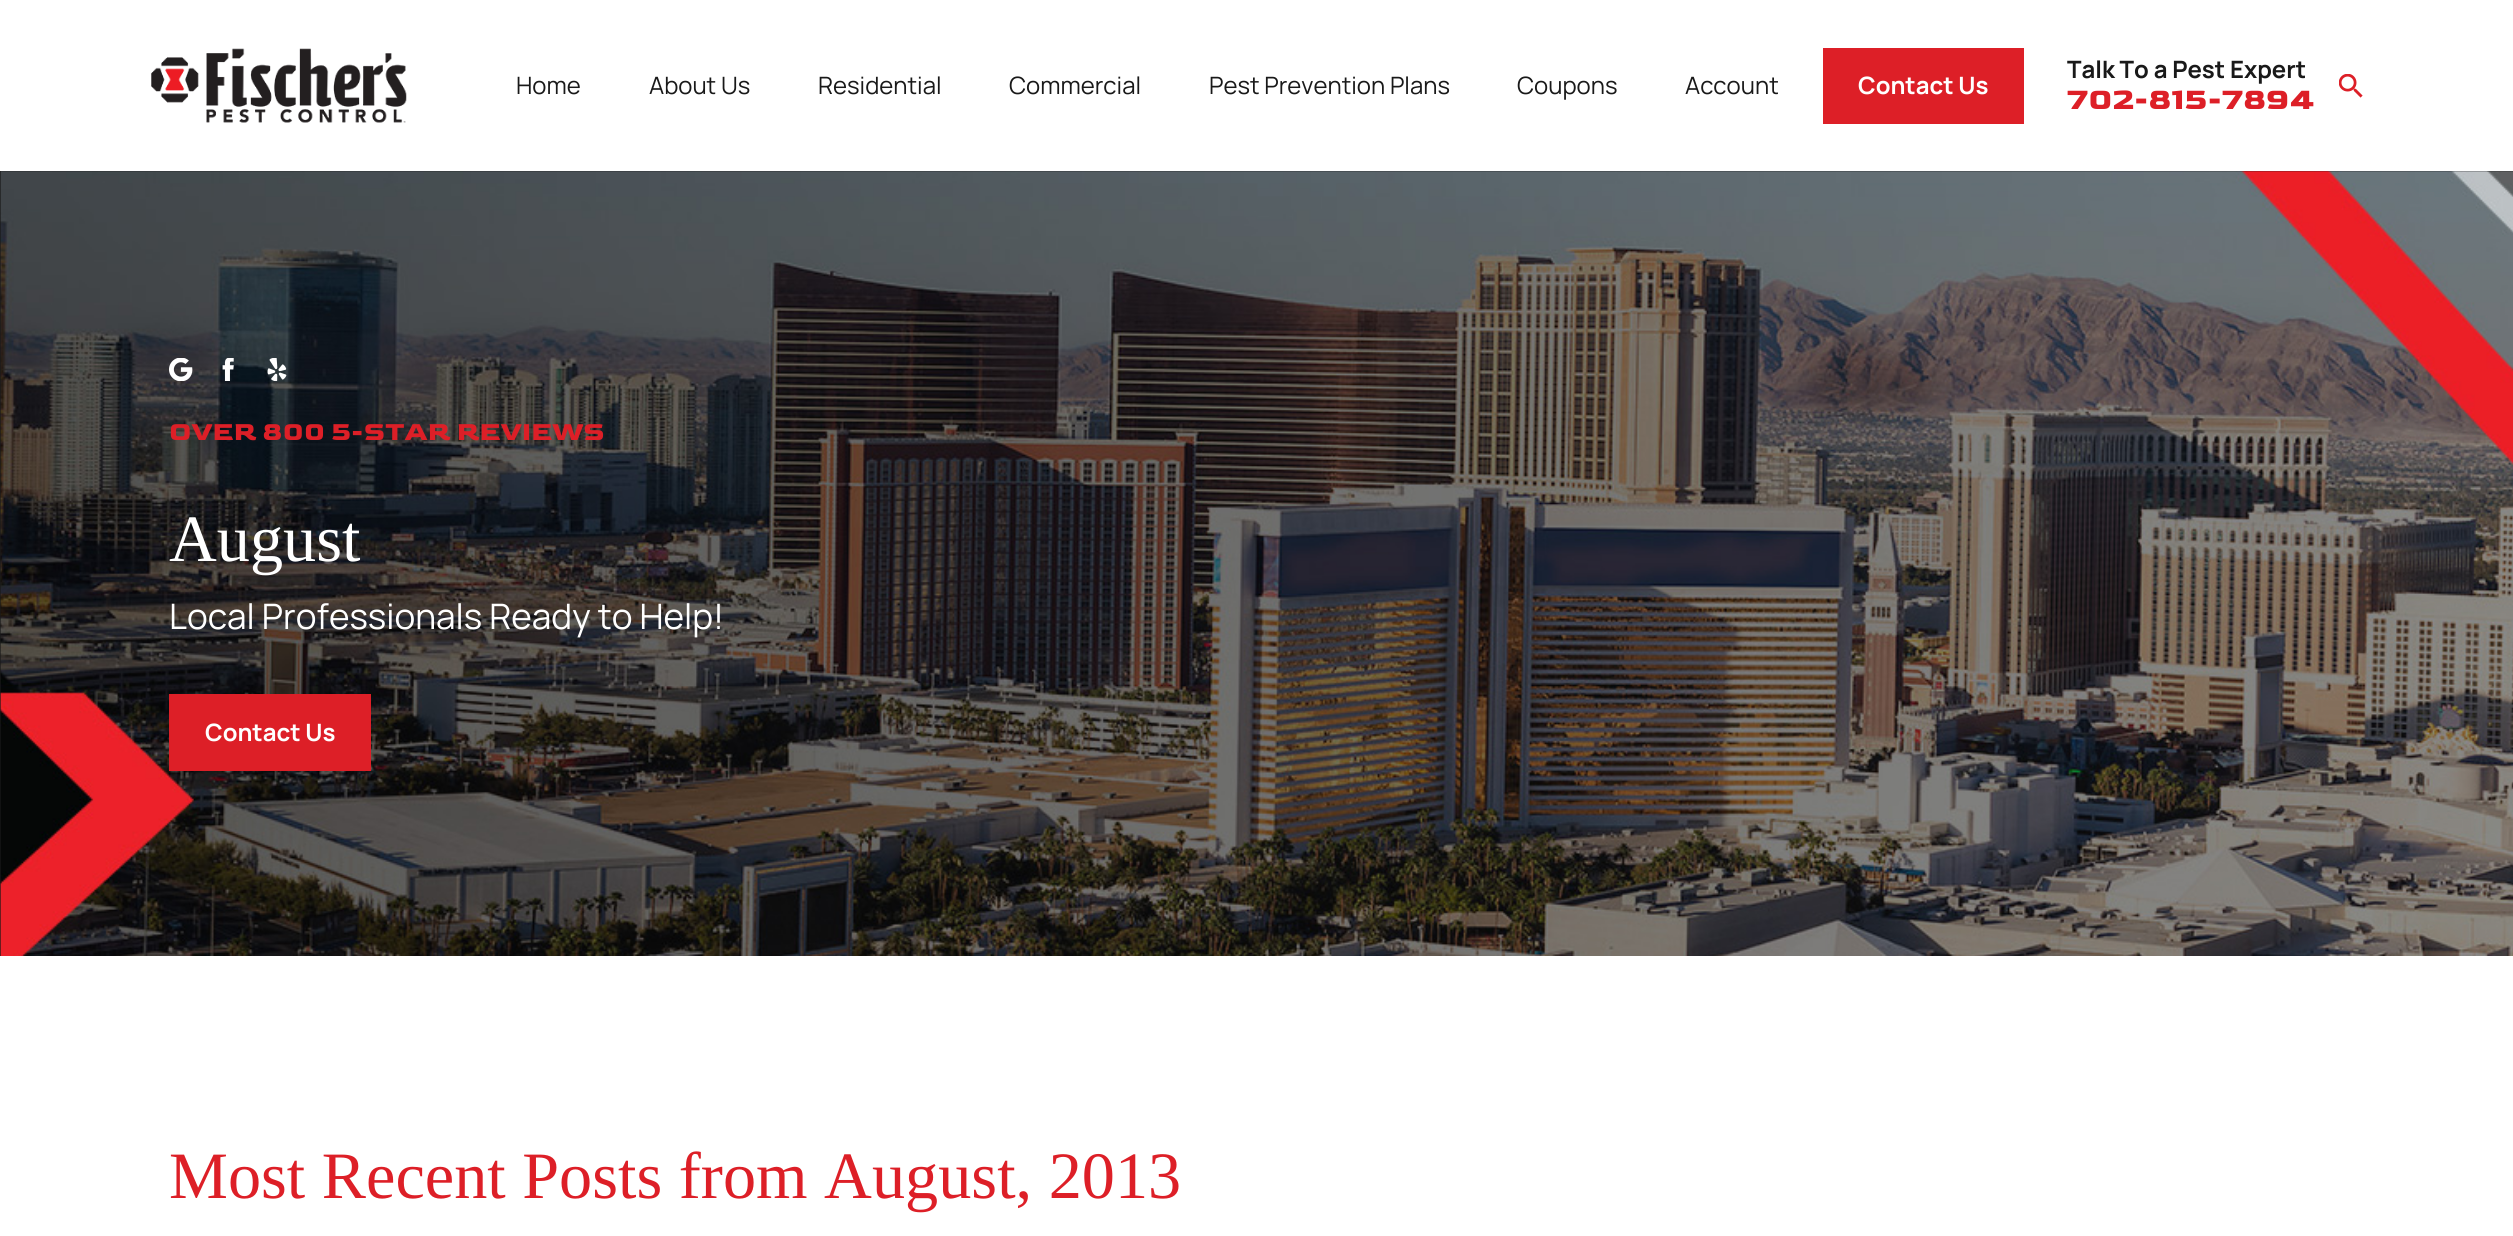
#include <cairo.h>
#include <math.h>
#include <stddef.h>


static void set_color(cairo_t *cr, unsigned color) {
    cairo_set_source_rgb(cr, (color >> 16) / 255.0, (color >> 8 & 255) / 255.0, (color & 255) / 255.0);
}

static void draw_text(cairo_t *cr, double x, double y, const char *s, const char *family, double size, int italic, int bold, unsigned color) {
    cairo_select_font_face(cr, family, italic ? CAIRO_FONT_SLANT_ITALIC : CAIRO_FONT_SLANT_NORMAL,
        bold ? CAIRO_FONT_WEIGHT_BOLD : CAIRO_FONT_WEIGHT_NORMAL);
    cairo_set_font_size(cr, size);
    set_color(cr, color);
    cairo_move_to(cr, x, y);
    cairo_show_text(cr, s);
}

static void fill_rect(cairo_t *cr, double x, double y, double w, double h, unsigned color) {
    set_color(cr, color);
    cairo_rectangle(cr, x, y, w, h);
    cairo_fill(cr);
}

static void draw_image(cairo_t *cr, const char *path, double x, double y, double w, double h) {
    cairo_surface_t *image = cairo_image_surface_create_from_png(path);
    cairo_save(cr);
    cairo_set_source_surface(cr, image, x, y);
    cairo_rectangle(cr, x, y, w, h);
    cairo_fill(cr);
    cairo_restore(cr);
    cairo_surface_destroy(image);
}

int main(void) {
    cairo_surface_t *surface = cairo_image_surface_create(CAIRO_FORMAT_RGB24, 2513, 1236);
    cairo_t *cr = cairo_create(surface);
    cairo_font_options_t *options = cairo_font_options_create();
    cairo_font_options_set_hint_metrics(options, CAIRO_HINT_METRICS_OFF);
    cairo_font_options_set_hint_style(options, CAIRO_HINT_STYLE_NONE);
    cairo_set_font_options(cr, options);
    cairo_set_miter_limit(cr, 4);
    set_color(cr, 0xFFFFFF);
    cairo_paint(cr);
    draw_image(cr, "assets/img1.png", 151, 48, 256, 75);
    draw_text(cr, 516, 94, "Home", "Manrope", 23.9, 0, 0, 0x191919);
    draw_text(cr, 649, 94, "About Us", "Manrope", 23.9, 0, 0, 0x191919);
    draw_text(cr, 818, 94, "Residential", "Manrope", 23.9, 0, 0, 0x191919);
    draw_text(cr, 1009, 94, "Commercial", "Manrope", 23.9, 0, 0, 0x191919);
    draw_text(cr, 1209, 94, "Pest Prevention Plans", "Manrope", 23.9, 0, 0, 0x191919);
    draw_text(cr, 1517, 94, "Coupons", "Manrope", 23.9, 0, 0, 0x191919);
    draw_text(cr, 1685, 94, "Account", "Manrope", 23.9, 0, 0, 0x191919);
    fill_rect(cr, 1823, 48, 201, 76, 0xDD1F27);
    draw_text(cr, 1858, 94, "Contact Us", "Manrope", 23.9, 0, 1, 0xFFFFFF);
    draw_text(cr, 2067, 78, "Talk To a Pest Expert", "Manrope", 23.9, 0, 1, 0x191919);
    draw_text(cr, 2067, 109, "702-815-7894", "Goldman", 31, 0, 1, 0xDD1F27);
    draw_image(cr, "assets/img2.png", 2339, 74, 24, 24);
    fill_rect(cr, 0, 171, 2513, 785, 0x191919);
    draw_image(cr, "assets/img3.png", 0, 171, 2513, 785);
    draw_image(cr, "assets/img4.png", 169, 358, 24, 23);
    draw_image(cr, "assets/img5.png", 222, 358, 12, 23);
    draw_image(cr, "assets/img6.png", 267, 358, 20, 23);
    draw_text(cr, 169, 440, "OVER 800 5-STAR REVIEWS", "Goldman", 26.9, 0, 1, 0xDD1F27);
    draw_text(cr, 169, 561, "August", "Liberation Serif", 66.25, 0, 0, 0xFFFFFF);
    draw_text(cr, 169, 629, "Local Professionals Ready to Help!", "Manrope", 35.1, 0, 0, 0xFFFFFF);
    fill_rect(cr, 169, 694, 202, 77, 0xDD1F27);
    draw_text(cr, 205, 741, "Contact Us", "Manrope", 23.9, 0, 1, 0xFFFFFF);
    draw_text(cr, 169, 1198, "Most Recent Posts from August, 2013", "Liberation Serif", 66.25, 0, 0, 0xDD1F27);
    cairo_surface_write_to_png(surface, "output.png");
    cairo_font_options_destroy(options);
    cairo_destroy(cr);
    cairo_surface_destroy(surface);
    return 0;
}
